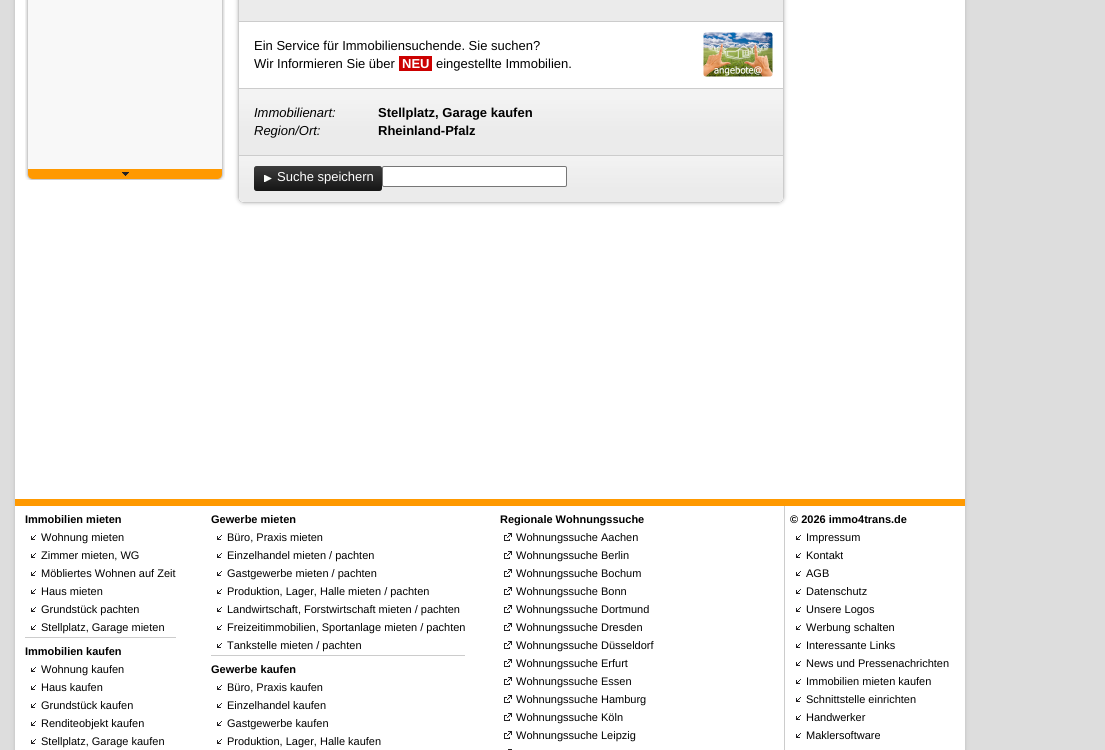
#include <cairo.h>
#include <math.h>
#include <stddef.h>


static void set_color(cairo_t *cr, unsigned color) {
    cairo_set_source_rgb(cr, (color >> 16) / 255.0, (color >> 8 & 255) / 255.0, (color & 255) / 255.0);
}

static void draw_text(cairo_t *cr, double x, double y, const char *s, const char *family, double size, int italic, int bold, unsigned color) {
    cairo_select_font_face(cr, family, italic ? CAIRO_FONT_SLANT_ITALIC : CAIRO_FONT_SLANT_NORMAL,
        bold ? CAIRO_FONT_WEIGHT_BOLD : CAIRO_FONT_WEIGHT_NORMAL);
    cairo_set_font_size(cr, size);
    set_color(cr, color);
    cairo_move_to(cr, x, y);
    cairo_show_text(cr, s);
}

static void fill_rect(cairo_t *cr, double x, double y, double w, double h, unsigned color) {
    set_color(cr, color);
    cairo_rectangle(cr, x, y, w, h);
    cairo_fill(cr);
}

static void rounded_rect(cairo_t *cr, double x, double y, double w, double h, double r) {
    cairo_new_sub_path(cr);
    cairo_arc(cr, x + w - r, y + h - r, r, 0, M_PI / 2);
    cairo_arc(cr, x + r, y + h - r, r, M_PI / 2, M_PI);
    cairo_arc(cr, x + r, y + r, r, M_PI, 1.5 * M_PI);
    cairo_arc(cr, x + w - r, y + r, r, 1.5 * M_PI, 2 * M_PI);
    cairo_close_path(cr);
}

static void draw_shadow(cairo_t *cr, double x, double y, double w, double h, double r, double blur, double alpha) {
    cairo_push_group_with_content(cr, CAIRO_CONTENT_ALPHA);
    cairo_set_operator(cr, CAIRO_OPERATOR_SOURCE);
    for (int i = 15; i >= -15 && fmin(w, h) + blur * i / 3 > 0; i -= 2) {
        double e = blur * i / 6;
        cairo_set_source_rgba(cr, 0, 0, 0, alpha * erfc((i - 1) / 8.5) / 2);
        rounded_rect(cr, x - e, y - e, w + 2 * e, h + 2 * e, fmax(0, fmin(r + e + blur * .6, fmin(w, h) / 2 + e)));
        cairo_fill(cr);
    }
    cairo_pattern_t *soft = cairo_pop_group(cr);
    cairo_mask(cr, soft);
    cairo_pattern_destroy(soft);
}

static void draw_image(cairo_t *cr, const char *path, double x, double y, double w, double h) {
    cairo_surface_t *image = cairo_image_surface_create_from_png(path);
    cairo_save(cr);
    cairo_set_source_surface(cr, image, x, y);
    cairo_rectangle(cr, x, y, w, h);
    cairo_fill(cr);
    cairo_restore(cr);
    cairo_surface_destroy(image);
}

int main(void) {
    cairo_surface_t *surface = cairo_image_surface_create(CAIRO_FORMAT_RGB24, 1105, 750);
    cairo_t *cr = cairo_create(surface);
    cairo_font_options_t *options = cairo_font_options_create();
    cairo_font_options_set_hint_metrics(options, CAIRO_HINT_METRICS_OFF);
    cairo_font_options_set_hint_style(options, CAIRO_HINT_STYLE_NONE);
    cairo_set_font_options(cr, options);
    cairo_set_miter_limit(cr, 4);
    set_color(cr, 0xDDDDDD);
    cairo_paint(cr);
    set_color(cr, 0xBBBBBB);
    draw_shadow(cr, 15, -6, 950, 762, 0, 2, 1);
    fill_rect(cr, 15, 0, 950, 750, 0xFFFFFF);
    cairo_save(cr);
    cairo_rectangle(cr, 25, 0, 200, 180);
    cairo_clip(cr);
    set_color(cr, 0xBBBBBB);
    draw_shadow(cr, 27, -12, 196, 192, 6, 2, 1);
    cairo_restore(cr);
    rounded_rect(cr, 27.5, -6.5, 195, 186, 5.5);
    set_color(cr, 0xCCCCCC);
    cairo_set_line_width(cr, 1);
    cairo_stroke(cr);
    fill_rect(cr, 28, 0, 194, 169, 0xF8F8F8);
    set_color(cr, 0xFF9900);
    cairo_new_path(cr);
    cairo_move_to(cr, 28, 169);
    cairo_line_to(cr, 222, 169);
    cairo_line_to(cr, 222, 174);
    cairo_curve_to(cr, 222, 177, 220, 179, 217, 179);
    cairo_line_to(cr, 33, 179);
    cairo_curve_to(cr, 30, 179, 28, 177, 28, 174);
    cairo_close_path(cr);
    cairo_fill(cr);
    draw_image(cr, "assets/img1.png", 122, 172, 7, 4);
    cairo_save(cr);
    cairo_set_fill_rule(cr, CAIRO_FILL_RULE_EVEN_ODD);
    cairo_new_path(cr);
    cairo_move_to(cr, 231, 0);
    cairo_line_to(cr, 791, 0);
    cairo_line_to(cr, 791, 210);
    cairo_line_to(cr, 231, 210);
    cairo_close_path(cr);
    cairo_move_to(cr, 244, -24);
    cairo_line_to(cr, 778, -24);
    cairo_curve_to(cr, 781.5, -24, 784, -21.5, 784, -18);
    cairo_line_to(cr, 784, 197);
    cairo_curve_to(cr, 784, 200.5, 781.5, 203, 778, 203);
    cairo_line_to(cr, 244, 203);
    cairo_curve_to(cr, 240.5, 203, 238, 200.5, 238, 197);
    cairo_line_to(cr, 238, -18);
    cairo_curve_to(cr, 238, -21.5, 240.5, -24, 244, -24);
    cairo_close_path(cr);
    cairo_clip(cr);
    set_color(cr, 0xBBBBBB);
    draw_shadow(cr, 238, -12, 546, 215, 6, 2, 1);
    cairo_restore(cr);
    rounded_rect(cr, 238.5, -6.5, 545, 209, 5.5);
    set_color(cr, 0xCCCCCC);
    cairo_stroke(cr);
    fill_rect(cr, 239, 0, 544, 21, 0xEBEBEB);
    fill_rect(cr, 239, 21, 544, 1, 0xCCCCCC);
    fill_rect(cr, 239, 88, 544, 1, 0xCCCCCC);
    draw_text(cr, 254, 50, "Ein Service für Immobiliensuchende. Sie suchen?", "Liberation Sans", 13, 0, 0, 0x000000);
    draw_text(cr, 254, 68, "Wir Informieren Sie über", "Liberation Sans", 13, 0, 0, 0x000000);
    fill_rect(cr, 399, 56, 33, 15, 0xCC0000);
    draw_text(cr, 402, 68, "NEU", "Liberation Sans", 13, 0, 1, 0xFFFFFF);
    draw_text(cr, 436, 68, "eingestellte Immobilien.", "Liberation Sans", 13, 0, 0, 0x000000);
    draw_image(cr, "assets/img2.png", 703, 32, 70, 45);
    draw_image(cr, "assets/img3.png", 239, 89, 544, 66);
    fill_rect(cr, 239, 155, 544, 1, 0xCCCCCC);
    draw_text(cr, 254, 117, "Immobilienart:", "Liberation Sans", 13, 1, 0, 0x000000);
    draw_text(cr, 378, 117, "Stellplatz, Garage kaufen", "Liberation Sans", 13, 0, 1, 0x000000);
    draw_text(cr, 254, 135, "Region/Ort:", "Liberation Sans", 13, 1, 0, 0x000000);
    draw_text(cr, 378, 135, "Rheinland-Pfalz", "Liberation Sans", 13, 0, 1, 0x000000);
    set_color(cr, 0xFFFFFF);
    cairo_new_path(cr);
    cairo_move_to(cr, 239, 156);
    cairo_line_to(cr, 783, 156);
    cairo_line_to(cr, 783, 197);
    cairo_curve_to(cr, 783, 200, 781, 202, 778, 202);
    cairo_line_to(cr, 244, 202);
    cairo_curve_to(cr, 241, 202, 239, 200, 239, 197);
    cairo_close_path(cr);
    cairo_fill(cr);
    draw_image(cr, "assets/img4.png", 239, 156, 544, 46);
    set_color(cr, 0x404040);
    rounded_rect(cr, 254, 166, 128, 25, 3);
    cairo_fill(cr);
    draw_image(cr, "assets/img5.png", 254, 166, 128, 25);
    draw_image(cr, "assets/img6.png", 264, 175, 8, 7);
    draw_text(cr, 277, 181, "Suche speichern", "Liberation Sans", 13, 0, 0, 0xFFFFFF);
    rounded_rect(cr, 382.5, 166.5, 184, 20, 1.5);
    cairo_fill_preserve(cr);
    set_color(cr, 0x767676);
    cairo_stroke(cr);
    fill_rect(cr, 15, 499, 950, 7, 0xFF9900);
    draw_text(cr, 25, 523, "Immobilien mieten", "Liberation Sans", 11, 0, 1, 0x000000);
    draw_image(cr, "assets/img7.png", 31, 535, 5, 5);
    draw_text(cr, 41, 541, "Wohnung mieten", "Liberation Sans", 11, 0, 0, 0x000000);
    draw_image(cr, "assets/img7.png", 31, 553, 5, 5);
    draw_text(cr, 41, 559, "Zimmer mieten, WG", "Liberation Sans", 11, 0, 0, 0x000000);
    draw_image(cr, "assets/img7.png", 31, 571, 5, 5);
    draw_text(cr, 41, 577, "Möbliertes Wohnen auf Zeit", "Liberation Sans", 11, 0, 0, 0x000000);
    draw_image(cr, "assets/img7.png", 31, 589, 5, 5);
    draw_text(cr, 41, 595, "Haus mieten", "Liberation Sans", 11, 0, 0, 0x000000);
    draw_image(cr, "assets/img7.png", 31, 607, 5, 5);
    draw_text(cr, 41, 613, "Grundstück pachten", "Liberation Sans", 11, 0, 0, 0x000000);
    draw_image(cr, "assets/img7.png", 31, 625, 5, 5);
    draw_text(cr, 41, 631, "Stellplatz, Garage mieten", "Liberation Sans", 11, 0, 0, 0x000000);
    fill_rect(cr, 25, 637, 151, 1, 0xCCCCCC);
    draw_text(cr, 25, 655, "Immobilien kaufen", "Liberation Sans", 11, 0, 1, 0x000000);
    draw_image(cr, "assets/img7.png", 31, 667, 5, 5);
    draw_text(cr, 41, 673, "Wohnung kaufen", "Liberation Sans", 11, 0, 0, 0x000000);
    draw_image(cr, "assets/img7.png", 31, 685, 5, 5);
    draw_text(cr, 41, 691, "Haus kaufen", "Liberation Sans", 11, 0, 0, 0x000000);
    draw_image(cr, "assets/img7.png", 31, 703, 5, 5);
    draw_text(cr, 41, 709, "Grundstück kaufen", "Liberation Sans", 11, 0, 0, 0x000000);
    draw_image(cr, "assets/img7.png", 31, 721, 5, 5);
    draw_text(cr, 41, 727, "Renditeobjekt kaufen", "Liberation Sans", 11, 0, 0, 0x000000);
    draw_image(cr, "assets/img7.png", 31, 739, 5, 5);
    draw_text(cr, 41, 745, "Stellplatz, Garage kaufen", "Liberation Sans", 11, 0, 0, 0x000000);
    draw_text(cr, 211, 523, "Gewerbe mieten", "Liberation Sans", 11, 0, 1, 0x000000);
    draw_image(cr, "assets/img7.png", 217, 535, 5, 5);
    draw_text(cr, 227, 541, "Büro, Praxis mieten", "Liberation Sans", 11, 0, 0, 0x000000);
    draw_image(cr, "assets/img7.png", 217, 553, 5, 5);
    draw_text(cr, 227, 559, "Einzelhandel mieten / pachten", "Liberation Sans", 11, 0, 0, 0x000000);
    draw_image(cr, "assets/img7.png", 217, 571, 5, 5);
    draw_text(cr, 227, 577, "Gastgewerbe mieten / pachten", "Liberation Sans", 11, 0, 0, 0x000000);
    draw_image(cr, "assets/img7.png", 217, 589, 5, 5);
    draw_text(cr, 227, 595, "Produktion, Lager, Halle mieten / pachten", "Liberation Sans", 11, 0, 0, 0x000000);
    draw_image(cr, "assets/img7.png", 217, 607, 5, 5);
    draw_text(cr, 227, 613, "Landwirtschaft, Forstwirtschaft mieten / pachten", "Liberation Sans", 11, 0, 0, 0x000000);
    draw_image(cr, "assets/img7.png", 217, 625, 5, 5);
    draw_text(cr, 227, 631, "Freizeitimmobilien, Sportanlage mieten / pachten", "Liberation Sans", 11, 0, 0, 0x000000);
    draw_image(cr, "assets/img7.png", 217, 643, 5, 5);
    draw_text(cr, 227, 649, "Tankstelle mieten / pachten", "Liberation Sans", 11, 0, 0, 0x000000);
    fill_rect(cr, 211, 655, 254, 1, 0xCCCCCC);
    draw_text(cr, 211, 673, "Gewerbe kaufen", "Liberation Sans", 11, 0, 1, 0x000000);
    draw_image(cr, "assets/img7.png", 217, 685, 5, 5);
    draw_text(cr, 227, 691, "Büro, Praxis kaufen", "Liberation Sans", 11, 0, 0, 0x000000);
    draw_image(cr, "assets/img7.png", 217, 703, 5, 5);
    draw_text(cr, 227, 709, "Einzelhandel kaufen", "Liberation Sans", 11, 0, 0, 0x000000);
    draw_image(cr, "assets/img7.png", 217, 721, 5, 5);
    draw_text(cr, 227, 727, "Gastgewerbe kaufen", "Liberation Sans", 11, 0, 0, 0x000000);
    draw_image(cr, "assets/img7.png", 217, 739, 5, 5);
    draw_text(cr, 227, 745, "Produktion, Lager, Halle kaufen", "Liberation Sans", 11, 0, 0, 0x000000);
    draw_text(cr, 500, 523, "Regionale Wohnungssuche", "Liberation Sans", 11, 0, 1, 0x000000);
    draw_image(cr, "assets/img8.png", 504, 533, 8, 8);
    draw_text(cr, 516, 541, "Wohnungssuche Aachen", "Liberation Sans", 11, 0, 0, 0x000000);
    draw_image(cr, "assets/img8.png", 504, 551, 8, 8);
    draw_text(cr, 516, 559, "Wohnungssuche Berlin", "Liberation Sans", 11, 0, 0, 0x000000);
    draw_image(cr, "assets/img8.png", 504, 569, 8, 8);
    draw_text(cr, 516, 577, "Wohnungssuche Bochum", "Liberation Sans", 11, 0, 0, 0x000000);
    draw_image(cr, "assets/img8.png", 504, 587, 8, 8);
    draw_text(cr, 516, 595, "Wohnungssuche Bonn", "Liberation Sans", 11, 0, 0, 0x000000);
    draw_image(cr, "assets/img8.png", 504, 605, 8, 8);
    draw_text(cr, 516, 613, "Wohnungssuche Dortmund", "Liberation Sans", 11, 0, 0, 0x000000);
    draw_image(cr, "assets/img8.png", 504, 623, 8, 8);
    draw_text(cr, 516, 631, "Wohnungssuche Dresden", "Liberation Sans", 11, 0, 0, 0x000000);
    draw_image(cr, "assets/img8.png", 504, 641, 8, 8);
    draw_text(cr, 516, 649, "Wohnungssuche Düsseldorf", "Liberation Sans", 11, 0, 0, 0x000000);
    draw_image(cr, "assets/img8.png", 504, 659, 8, 8);
    draw_text(cr, 516, 667, "Wohnungssuche Erfurt", "Liberation Sans", 11, 0, 0, 0x000000);
    draw_image(cr, "assets/img8.png", 504, 677, 8, 8);
    draw_text(cr, 516, 685, "Wohnungssuche Essen", "Liberation Sans", 11, 0, 0, 0x000000);
    draw_image(cr, "assets/img8.png", 504, 695, 8, 8);
    draw_text(cr, 516, 703, "Wohnungssuche Hamburg", "Liberation Sans", 11, 0, 0, 0x000000);
    draw_image(cr, "assets/img8.png", 504, 713, 8, 8);
    draw_text(cr, 516, 721, "Wohnungssuche Köln", "Liberation Sans", 11, 0, 0, 0x000000);
    draw_image(cr, "assets/img8.png", 504, 731, 8, 8);
    draw_text(cr, 516, 739, "Wohnungssuche Leipzig", "Liberation Sans", 11, 0, 0, 0x000000);
    fill_rect(cr, 508, 749, 4, 1, 0x242224);
    fill_rect(cr, 784, 506, 1, 244, 0xCCCCCC);
    draw_text(cr, 790, 523, "© 2026 immo4trans.de", "Liberation Sans", 11, 0, 1, 0x000000);
    draw_image(cr, "assets/img7.png", 796, 535, 5, 5);
    draw_text(cr, 806, 541, "Impressum", "Liberation Sans", 11, 0, 0, 0x000000);
    draw_image(cr, "assets/img7.png", 796, 553, 5, 5);
    draw_text(cr, 806, 559, "Kontakt", "Liberation Sans", 11, 0, 0, 0x000000);
    draw_image(cr, "assets/img7.png", 796, 571, 5, 5);
    draw_text(cr, 806, 577, "AGB", "Liberation Sans", 11, 0, 0, 0x000000);
    draw_image(cr, "assets/img7.png", 796, 589, 5, 5);
    draw_text(cr, 806, 595, "Datenschutz", "Liberation Sans", 11, 0, 0, 0x000000);
    draw_image(cr, "assets/img7.png", 796, 607, 5, 5);
    draw_text(cr, 806, 613, "Unsere Logos", "Liberation Sans", 11, 0, 0, 0x000000);
    draw_image(cr, "assets/img7.png", 796, 625, 5, 5);
    draw_text(cr, 806, 631, "Werbung schalten", "Liberation Sans", 11, 0, 0, 0x000000);
    draw_image(cr, "assets/img7.png", 796, 643, 5, 5);
    draw_text(cr, 806, 649, "Interessante Links", "Liberation Sans", 11, 0, 0, 0x000000);
    draw_image(cr, "assets/img7.png", 796, 661, 5, 5);
    draw_text(cr, 806, 667, "News und Pressenachrichten", "Liberation Sans", 11, 0, 0, 0x000000);
    draw_image(cr, "assets/img7.png", 796, 679, 5, 5);
    draw_text(cr, 806, 685, "Immobilien mieten kaufen", "Liberation Sans", 11, 0, 0, 0x000000);
    draw_image(cr, "assets/img7.png", 796, 697, 5, 5);
    draw_text(cr, 806, 703, "Schnittstelle einrichten", "Liberation Sans", 11, 0, 0, 0x000000);
    draw_image(cr, "assets/img7.png", 796, 715, 5, 5);
    draw_text(cr, 806, 721, "Handwerker", "Liberation Sans", 11, 0, 0, 0x000000);
    draw_image(cr, "assets/img7.png", 796, 733, 5, 5);
    draw_text(cr, 806, 739, "Maklersoftware", "Liberation Sans", 11, 0, 0, 0x000000);
    cairo_surface_write_to_png(surface, "output.png");
    cairo_font_options_destroy(options);
    cairo_destroy(cr);
    cairo_surface_destroy(surface);
    return 0;
}
